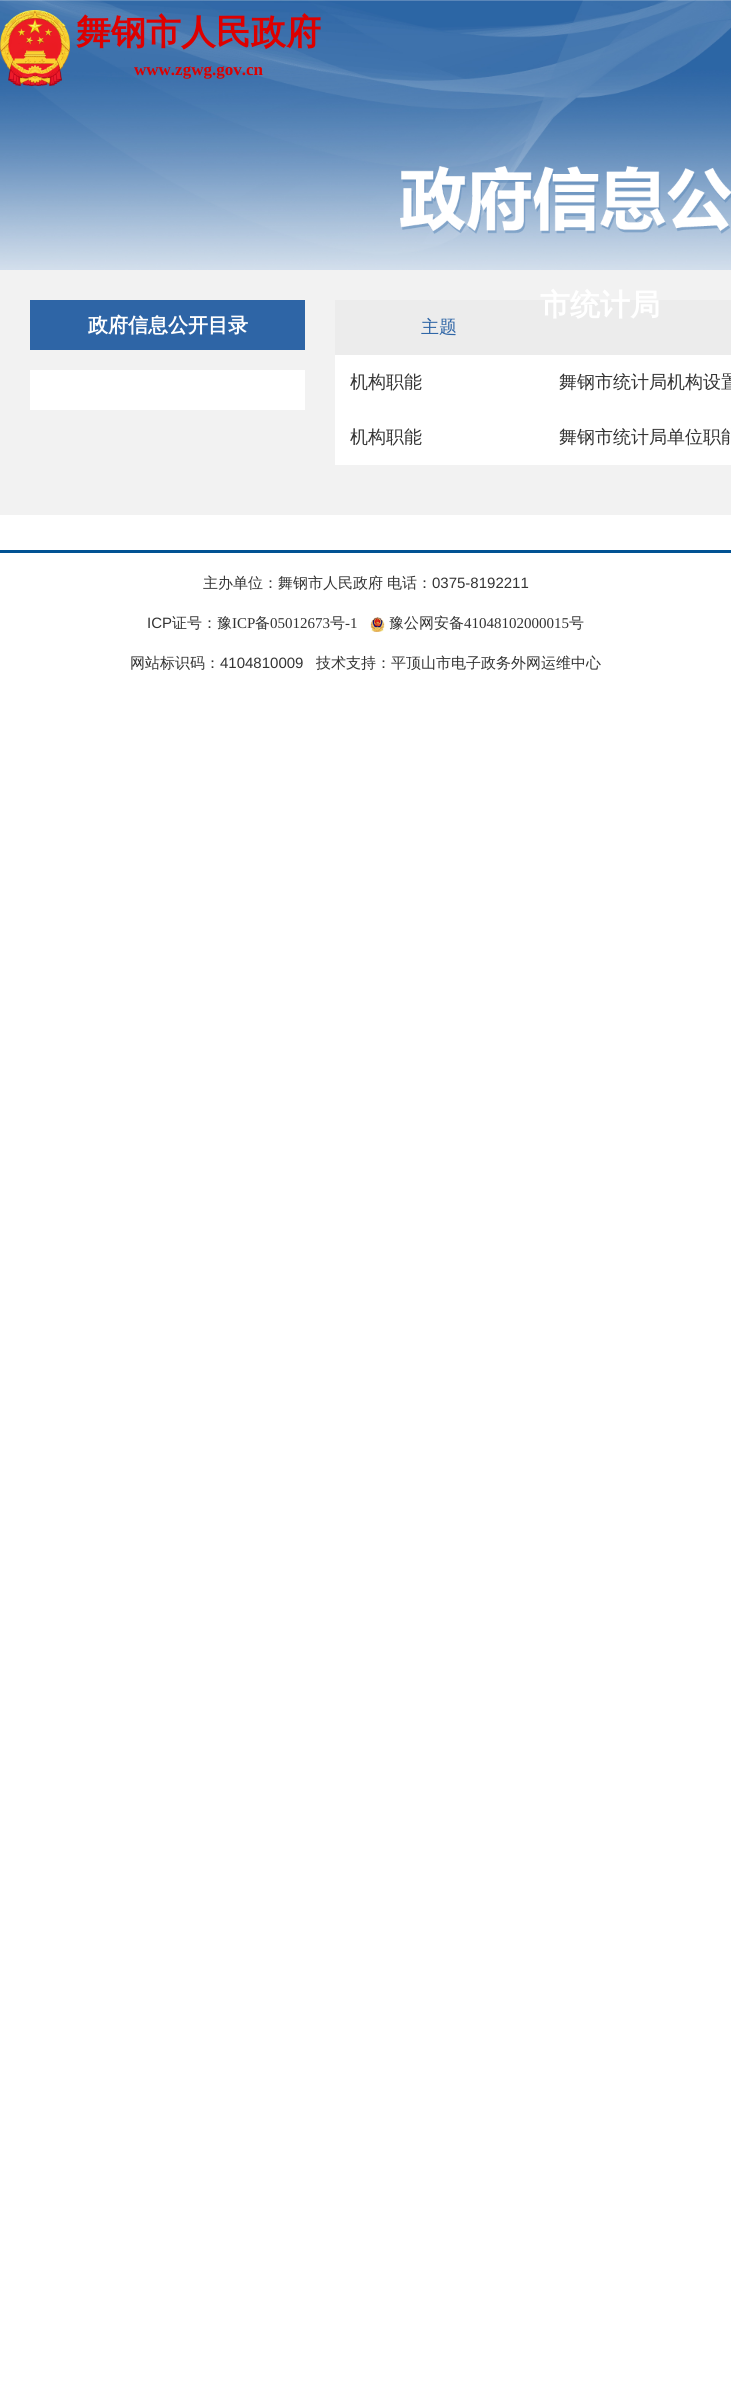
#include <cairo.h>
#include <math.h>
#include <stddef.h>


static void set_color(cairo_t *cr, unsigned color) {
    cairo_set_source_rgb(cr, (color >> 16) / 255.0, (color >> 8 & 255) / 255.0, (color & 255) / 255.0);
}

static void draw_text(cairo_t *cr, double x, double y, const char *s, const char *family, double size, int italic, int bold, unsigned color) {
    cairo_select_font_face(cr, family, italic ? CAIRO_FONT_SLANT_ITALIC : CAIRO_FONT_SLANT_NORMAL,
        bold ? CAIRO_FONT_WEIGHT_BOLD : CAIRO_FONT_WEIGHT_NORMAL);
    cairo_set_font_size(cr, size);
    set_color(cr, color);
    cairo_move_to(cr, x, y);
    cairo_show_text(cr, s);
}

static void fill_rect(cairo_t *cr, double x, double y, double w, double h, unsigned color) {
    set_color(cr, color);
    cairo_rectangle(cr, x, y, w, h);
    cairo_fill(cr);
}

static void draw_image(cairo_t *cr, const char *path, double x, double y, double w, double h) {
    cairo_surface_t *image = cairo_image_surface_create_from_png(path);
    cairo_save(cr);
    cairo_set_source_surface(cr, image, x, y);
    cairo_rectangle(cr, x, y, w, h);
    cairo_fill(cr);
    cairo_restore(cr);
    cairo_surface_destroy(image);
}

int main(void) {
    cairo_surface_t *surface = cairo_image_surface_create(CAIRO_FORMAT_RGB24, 731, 2406);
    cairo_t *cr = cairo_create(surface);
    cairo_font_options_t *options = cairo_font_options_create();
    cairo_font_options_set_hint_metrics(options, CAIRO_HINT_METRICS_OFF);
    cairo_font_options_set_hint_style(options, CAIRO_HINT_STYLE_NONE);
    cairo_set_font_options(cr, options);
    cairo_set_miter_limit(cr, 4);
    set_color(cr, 0xFFFFFF);
    cairo_paint(cr);
    draw_image(cr, "assets/img1.png", 0, 0, 731, 270);
    draw_image(cr, "assets/img2.png", 0, 10, 70, 76);
    draw_text(cr, 76, 44, "舞钢市人民政府", "WenQuanYi Zen Hei", 35, 0, 1, 0xDD0000);
    draw_text(cr, 134, 75, "www.zgwg.gov.cn", "Liberation Serif", 17, 0, 1, 0xDD0000);
    draw_image(cr, "assets/img3.png", 400, 166, 331, 68);
    fill_rect(cr, 0, 270, 731, 245, 0xF2F2F2);
    fill_rect(cr, 335, 300, 396, 55, 0xECECEC);
    draw_text(cr, 540, 315, "市统计局", "WenQuanYi Zen Hei", 30, 0, 1, 0xFFFFFF);
    fill_rect(cr, 30, 300, 275, 50, 0x2E65A6);
    draw_text(cr, 88, 332, "政府信息公开目录", "WenQuanYi Zen Hei", 20, 0, 1, 0xFFFFFF);
    fill_rect(cr, 30, 370, 275, 40, 0xFFFFFF);
    fill_rect(cr, 335, 355, 396, 110, 0xFFFFFF);
    draw_text(cr, 421, 333, "主题", "WenQuanYi Zen Hei Medium", 18, 0, 0, 0x2E65A6);
    draw_text(cr, 350, 388, "机构职能", "WenQuanYi Zen Hei Medium", 18, 0, 0, 0x333333);
    draw_text(cr, 559, 388, "舞钢市统计局机构设置", "WenQuanYi Zen Hei Medium", 18, 0, 0, 0x333333);
    draw_text(cr, 350, 443, "机构职能", "WenQuanYi Zen Hei Medium", 18, 0, 0, 0x333333);
    draw_text(cr, 559, 443, "舞钢市统计局单位职能", "WenQuanYi Zen Hei Medium", 18, 0, 0, 0x333333);
    fill_rect(cr, 0, 550, 731, 3, 0x015293);
    draw_text(cr, 203, 588, "主办单位：舞钢市人民政府", "WenQuanYi Zen Hei Medium", 15, 0, 0, 0x333333);
    draw_text(cr, 387, 588, "电话：", "WenQuanYi Zen Hei Medium", 15, 0, 0, 0x333333);
    draw_text(cr, 432, 588, "0375-8192211", "Liberation Sans", 15, 0, 0, 0x333333);
    draw_text(cr, 147, 628, "ICP", "Liberation Sans", 15, 0, 0, 0x333333);
    draw_text(cr, 172, 628, "证号：豫", "WenQuanYi Zen Hei Medium", 15, 0, 0, 0x333333);
    draw_text(cr, 232, 628, "ICP", "Liberation Serif", 15, 0, 0, 0x333333);
    draw_text(cr, 255, 628, "备", "WenQuanYi Zen Hei Medium", 15, 0, 0, 0x333333);
    draw_text(cr, 270, 628, "05012673", "Liberation Serif", 15, 0, 0, 0x333333);
    draw_text(cr, 330, 628, "号", "WenQuanYi Zen Hei Medium", 15, 0, 0, 0x333333);
    draw_text(cr, 345, 628, "-1", "Liberation Serif", 15, 0, 0, 0x333333);
    draw_image(cr, "assets/img4.png", 370, 617, 15, 15);
    draw_text(cr, 389, 628, "豫公网安备", "WenQuanYi Zen Hei Medium", 15, 0, 0, 0x333333);
    draw_text(cr, 464, 628, "41048102000015", "Liberation Serif", 15, 0, 0, 0x333333);
    draw_text(cr, 569, 628, "号", "WenQuanYi Zen Hei Medium", 15, 0, 0, 0x333333);
    draw_text(cr, 130, 668, "网站标识码：", "WenQuanYi Zen Hei Medium", 15, 0, 0, 0x333333);
    draw_text(cr, 220, 668, "4104810009", "Liberation Sans", 15, 0, 0, 0x333333);
    draw_text(cr, 316, 668, "技术支持：平顶山市电子政务外网运维中心", "WenQuanYi Zen Hei Medium", 15, 0, 0, 0x333333);
    cairo_surface_write_to_png(surface, "output.png");
    cairo_font_options_destroy(options);
    cairo_destroy(cr);
    cairo_surface_destroy(surface);
    return 0;
}
